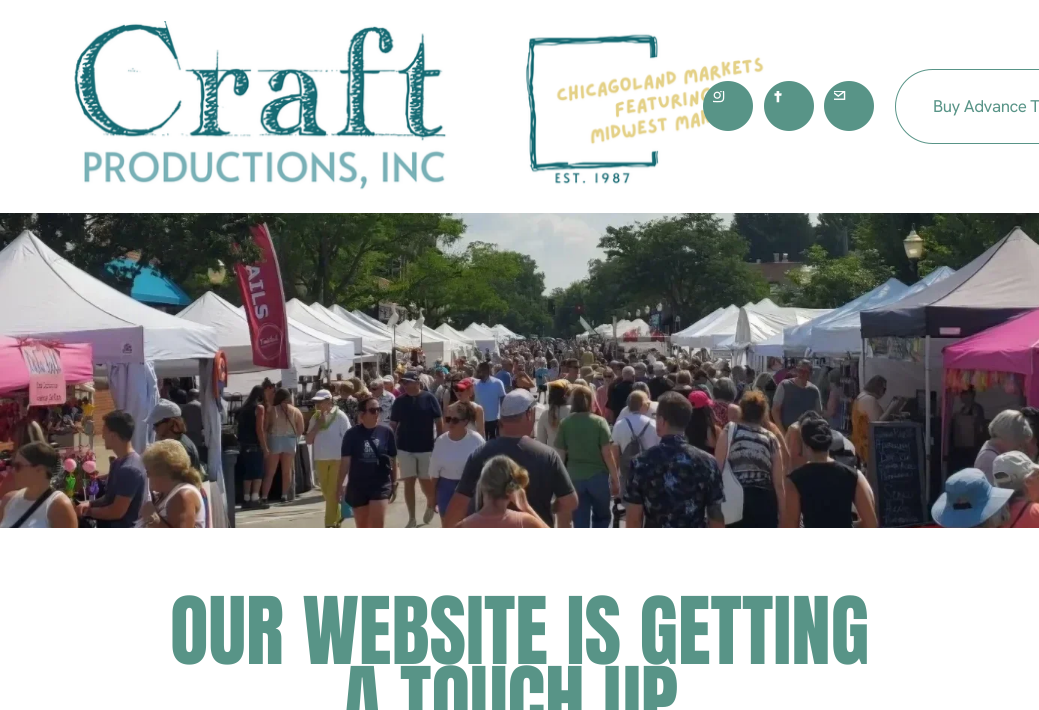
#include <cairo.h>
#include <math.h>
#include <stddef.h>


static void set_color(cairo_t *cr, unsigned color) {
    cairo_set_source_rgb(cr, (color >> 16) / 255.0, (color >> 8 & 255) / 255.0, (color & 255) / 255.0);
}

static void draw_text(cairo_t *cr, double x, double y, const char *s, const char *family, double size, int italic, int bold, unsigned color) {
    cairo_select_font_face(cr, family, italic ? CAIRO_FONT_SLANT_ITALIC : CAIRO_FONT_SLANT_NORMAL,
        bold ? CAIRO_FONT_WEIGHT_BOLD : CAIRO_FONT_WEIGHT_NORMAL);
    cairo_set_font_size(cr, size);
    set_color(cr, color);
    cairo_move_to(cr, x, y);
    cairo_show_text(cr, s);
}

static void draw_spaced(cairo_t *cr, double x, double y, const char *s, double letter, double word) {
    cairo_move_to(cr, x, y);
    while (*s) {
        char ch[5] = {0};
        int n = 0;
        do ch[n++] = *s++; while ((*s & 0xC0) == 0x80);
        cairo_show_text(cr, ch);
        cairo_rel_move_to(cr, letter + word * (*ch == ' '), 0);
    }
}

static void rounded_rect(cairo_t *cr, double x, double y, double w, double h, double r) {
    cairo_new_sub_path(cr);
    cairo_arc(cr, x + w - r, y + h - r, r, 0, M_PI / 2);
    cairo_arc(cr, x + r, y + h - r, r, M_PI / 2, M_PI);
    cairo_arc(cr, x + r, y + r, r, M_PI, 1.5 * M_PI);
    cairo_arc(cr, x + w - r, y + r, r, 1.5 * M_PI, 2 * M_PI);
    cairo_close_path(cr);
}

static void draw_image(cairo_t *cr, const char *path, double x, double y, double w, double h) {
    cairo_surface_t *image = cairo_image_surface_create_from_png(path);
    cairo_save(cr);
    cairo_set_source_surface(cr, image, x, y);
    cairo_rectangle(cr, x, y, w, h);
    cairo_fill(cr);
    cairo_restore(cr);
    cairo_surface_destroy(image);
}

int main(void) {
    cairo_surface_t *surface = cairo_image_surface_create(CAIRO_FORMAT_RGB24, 1039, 710);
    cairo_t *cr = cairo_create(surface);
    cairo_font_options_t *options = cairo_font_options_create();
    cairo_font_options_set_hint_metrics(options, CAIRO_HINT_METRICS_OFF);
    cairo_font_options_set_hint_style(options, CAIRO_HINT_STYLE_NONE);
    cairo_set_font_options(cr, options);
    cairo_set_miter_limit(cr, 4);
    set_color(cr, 0xFFFFFF);
    cairo_paint(cr);
    draw_image(cr, "assets/img1.png", 74, 21, 690, 169);
    set_color(cr, 0x589487);
    cairo_arc(cr, 728, 106, 25, 0, 2 * M_PI);
    cairo_fill(cr);
    draw_image(cr, "assets/img2.png", 713, 91, 12, 12);
    cairo_arc(cr, 789, 106, 25, 0, 2 * M_PI);
    cairo_fill(cr);
    draw_image(cr, "assets/img3.png", 774, 91, 8, 12);
    cairo_arc(cr, 849, 106, 25, 0, 2 * M_PI);
    cairo_fill(cr);
    draw_image(cr, "assets/img4.png", 834, 91, 12, 9);
    rounded_rect(cr, 895.5, 69.5, 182, 74, 37);
    cairo_set_line_width(cr, 1);
    cairo_stroke(cr);
    cairo_select_font_face(cr, "Hanken Grotesk", CAIRO_FONT_SLANT_NORMAL, CAIRO_FONT_WEIGHT_NORMAL);
    cairo_set_font_size(cr, 17);
    draw_spaced(cr, 933, 112, "Buy Advance T", -0.5, 0);
    draw_image(cr, "assets/img5.png", 0, 213, 1039, 315);
    draw_text(cr, 170, 664, "OUR WEBSITE IS GETTING", "Anton", 79.25, 0, 0, 0x589487);
    draw_text(cr, 343, 734, "A TOUCH UP", "Anton", 79.25, 0, 0, 0x589487);
    cairo_surface_write_to_png(surface, "output.png");
    cairo_font_options_destroy(options);
    cairo_destroy(cr);
    cairo_surface_destroy(surface);
    return 0;
}
